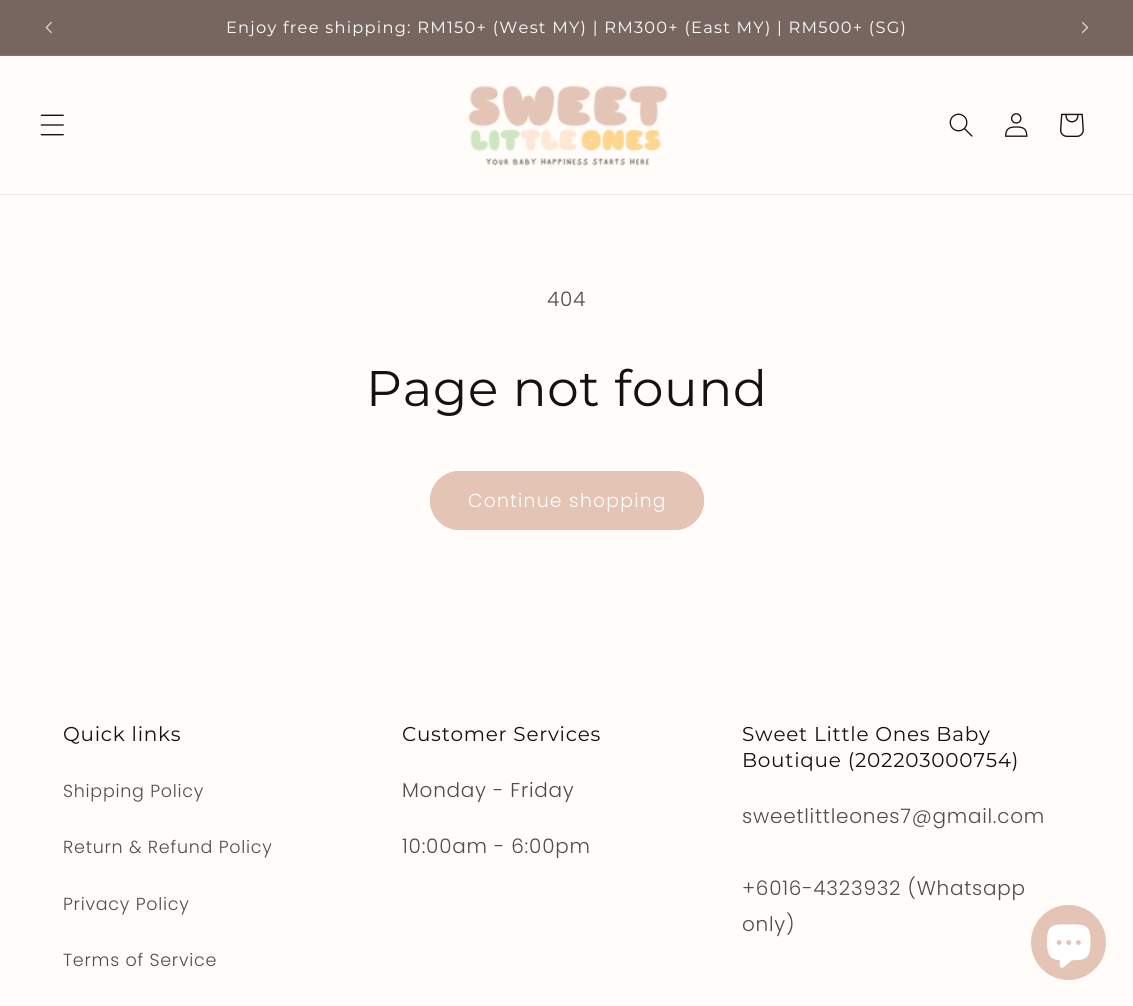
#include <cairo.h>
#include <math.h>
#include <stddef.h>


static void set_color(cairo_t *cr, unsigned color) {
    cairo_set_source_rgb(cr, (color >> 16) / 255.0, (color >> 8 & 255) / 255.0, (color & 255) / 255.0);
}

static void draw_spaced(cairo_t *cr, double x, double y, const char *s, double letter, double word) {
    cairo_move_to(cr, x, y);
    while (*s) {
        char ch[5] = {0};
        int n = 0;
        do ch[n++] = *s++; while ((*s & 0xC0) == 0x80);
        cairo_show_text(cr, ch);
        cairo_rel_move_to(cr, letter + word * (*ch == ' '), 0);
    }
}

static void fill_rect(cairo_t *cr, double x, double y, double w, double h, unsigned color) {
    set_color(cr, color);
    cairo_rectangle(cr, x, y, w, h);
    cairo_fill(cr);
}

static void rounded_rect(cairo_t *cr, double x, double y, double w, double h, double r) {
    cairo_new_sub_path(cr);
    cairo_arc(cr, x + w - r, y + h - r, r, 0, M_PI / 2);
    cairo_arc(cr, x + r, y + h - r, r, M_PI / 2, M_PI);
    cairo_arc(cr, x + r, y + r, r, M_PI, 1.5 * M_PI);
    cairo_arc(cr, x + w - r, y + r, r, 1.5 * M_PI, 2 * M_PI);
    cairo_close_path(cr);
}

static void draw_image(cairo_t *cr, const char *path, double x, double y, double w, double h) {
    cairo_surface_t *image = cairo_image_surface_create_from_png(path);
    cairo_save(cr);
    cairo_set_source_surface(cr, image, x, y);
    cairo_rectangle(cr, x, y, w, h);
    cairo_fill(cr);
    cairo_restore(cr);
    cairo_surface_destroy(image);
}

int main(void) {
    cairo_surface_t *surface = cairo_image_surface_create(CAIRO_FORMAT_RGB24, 1133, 1006);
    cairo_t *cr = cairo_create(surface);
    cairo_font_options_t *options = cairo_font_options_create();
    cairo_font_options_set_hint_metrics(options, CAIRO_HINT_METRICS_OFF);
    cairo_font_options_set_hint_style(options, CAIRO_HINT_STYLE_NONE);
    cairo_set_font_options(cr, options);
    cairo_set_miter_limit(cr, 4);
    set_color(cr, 0xFFFCF9);
    cairo_paint(cr);
    fill_rect(cr, 0, 0, 1133, 55, 0x76665F);
    fill_rect(cr, 0, 55, 1133, 1, 0x81726C);
    draw_image(cr, "assets/img1.png", 45, 21, 7, 13);
    cairo_select_font_face(cr, "Montserrat", CAIRO_FONT_SLANT_NORMAL, CAIRO_FONT_WEIGHT_NORMAL);
    cairo_set_font_size(cr, 16.25);
    set_color(cr, 0xFFFFFF);
    draw_spaced(cr, 226, 33, "Enjoy free shipping: RM150+ (West MY) | RM300+ (East MY) | RM500+ (SG)", 1.25, 0);
    draw_image(cr, "assets/img2.png", 1082, 21, 6, 13);
    fill_rect(cr, 0, 194, 1133, 1, 0xECE9E7);
    draw_image(cr, "assets/img3.png", 40, 114, 24, 22);
    draw_image(cr, "assets/img4.png", 468, 85, 200, 81);
    draw_image(cr, "assets/img5.png", 949, 113, 24, 24);
    draw_image(cr, "assets/img6.png", 1005, 113, 23, 24);
    draw_image(cr, "assets/img7.png", 1060, 113, 24, 24);
    cairo_select_font_face(cr, "Poppins Light", CAIRO_FONT_SLANT_NORMAL, CAIRO_FONT_WEIGHT_NORMAL);
    cairo_set_font_size(cr, 20);
    set_color(cr, 0x4D4D4C);
    draw_spaced(cr, 547, 306, "404", 0.75, 0);
    cairo_select_font_face(cr, "Montserrat", CAIRO_FONT_SLANT_NORMAL, CAIRO_FONT_WEIGHT_NORMAL);
    cairo_set_font_size(cr, 50);
    set_color(cr, 0x121212);
    draw_spaced(cr, 366, 406, "Page not found", 0.75, 0);
    set_color(cr, 0xE3C4B5);
    rounded_rect(cr, 430, 471, 274, 59, 29.5);
    cairo_fill(cr);
    rounded_rect(cr, 430.5, 471.5, 273, 58, 29);
    cairo_set_line_width(cr, 1);
    cairo_stroke(cr);
    cairo_select_font_face(cr, "Poppins Light", CAIRO_FONT_SLANT_NORMAL, CAIRO_FONT_WEIGHT_NORMAL);
    cairo_set_font_size(cr, 18.75);
    set_color(cr, 0xFFFFFF);
    draw_spaced(cr, 468, 507, "Continue shopping", 1.25, 0);
    cairo_select_font_face(cr, "Montserrat", CAIRO_FONT_SLANT_NORMAL, CAIRO_FONT_WEIGHT_NORMAL);
    cairo_set_font_size(cr, 20);
    set_color(cr, 0x121212);
    draw_spaced(cr, 63, 741, "Quick links", 0.75, 0);
    cairo_select_font_face(cr, "Poppins Light", CAIRO_FONT_SLANT_NORMAL, CAIRO_FONT_WEIGHT_NORMAL);
    cairo_set_font_size(cr, 17.5);
    set_color(cr, 0x4D4D4C);
    draw_spaced(cr, 63, 797, "Shipping Policy", 0.75, 0);
    draw_spaced(cr, 63, 853, "Return & Refund Policy", 0.75, 0);
    draw_spaced(cr, 63, 910, "Privacy Policy", 0.75, 0);
    draw_spaced(cr, 63, 966, "Terms of Service", 0.75, 0);
    cairo_select_font_face(cr, "Montserrat", CAIRO_FONT_SLANT_NORMAL, CAIRO_FONT_WEIGHT_NORMAL);
    cairo_set_font_size(cr, 20);
    set_color(cr, 0x121212);
    draw_spaced(cr, 402, 741, "Customer Services", 0.75, 0);
    cairo_select_font_face(cr, "Poppins Light", CAIRO_FONT_SLANT_NORMAL, CAIRO_FONT_WEIGHT_NORMAL);
    set_color(cr, 0x4D4D4C);
    draw_spaced(cr, 402, 797, "Monday - Friday", 0.75, 0);
    draw_spaced(cr, 402, 853, "10:00am - 6:00pm", 0.75, 0);
    cairo_select_font_face(cr, "Montserrat", CAIRO_FONT_SLANT_NORMAL, CAIRO_FONT_WEIGHT_NORMAL);
    set_color(cr, 0x121212);
    draw_spaced(cr, 742, 741, "Sweet Little Ones Baby", 0.75, 0);
    draw_spaced(cr, 742, 767, "Boutique (202203000754)", 0.75, 0);
    cairo_select_font_face(cr, "Poppins Light", CAIRO_FONT_SLANT_NORMAL, CAIRO_FONT_WEIGHT_NORMAL);
    set_color(cr, 0x4D4D4C);
    draw_spaced(cr, 742, 823, "sweetlittleones7@gmail.com", 0.75, 0);
    draw_spaced(cr, 742, 895, "+6016-4323932 (Whatsapp", 0.75, 0);
    draw_spaced(cr, 742, 931, "only)", 0.75, 0);
    set_color(cr, 0xE3C4B5);
    cairo_new_path(cr);
    cairo_arc(cr, 1068.5, 942.5, 37.5, 0, 2 * M_PI);
    cairo_fill(cr);
    draw_image(cr, "assets/img8.png", 1047, 924, 44, 44);
    cairo_surface_write_to_png(surface, "output.png");
    cairo_font_options_destroy(options);
    cairo_destroy(cr);
    cairo_surface_destroy(surface);
    return 0;
}
